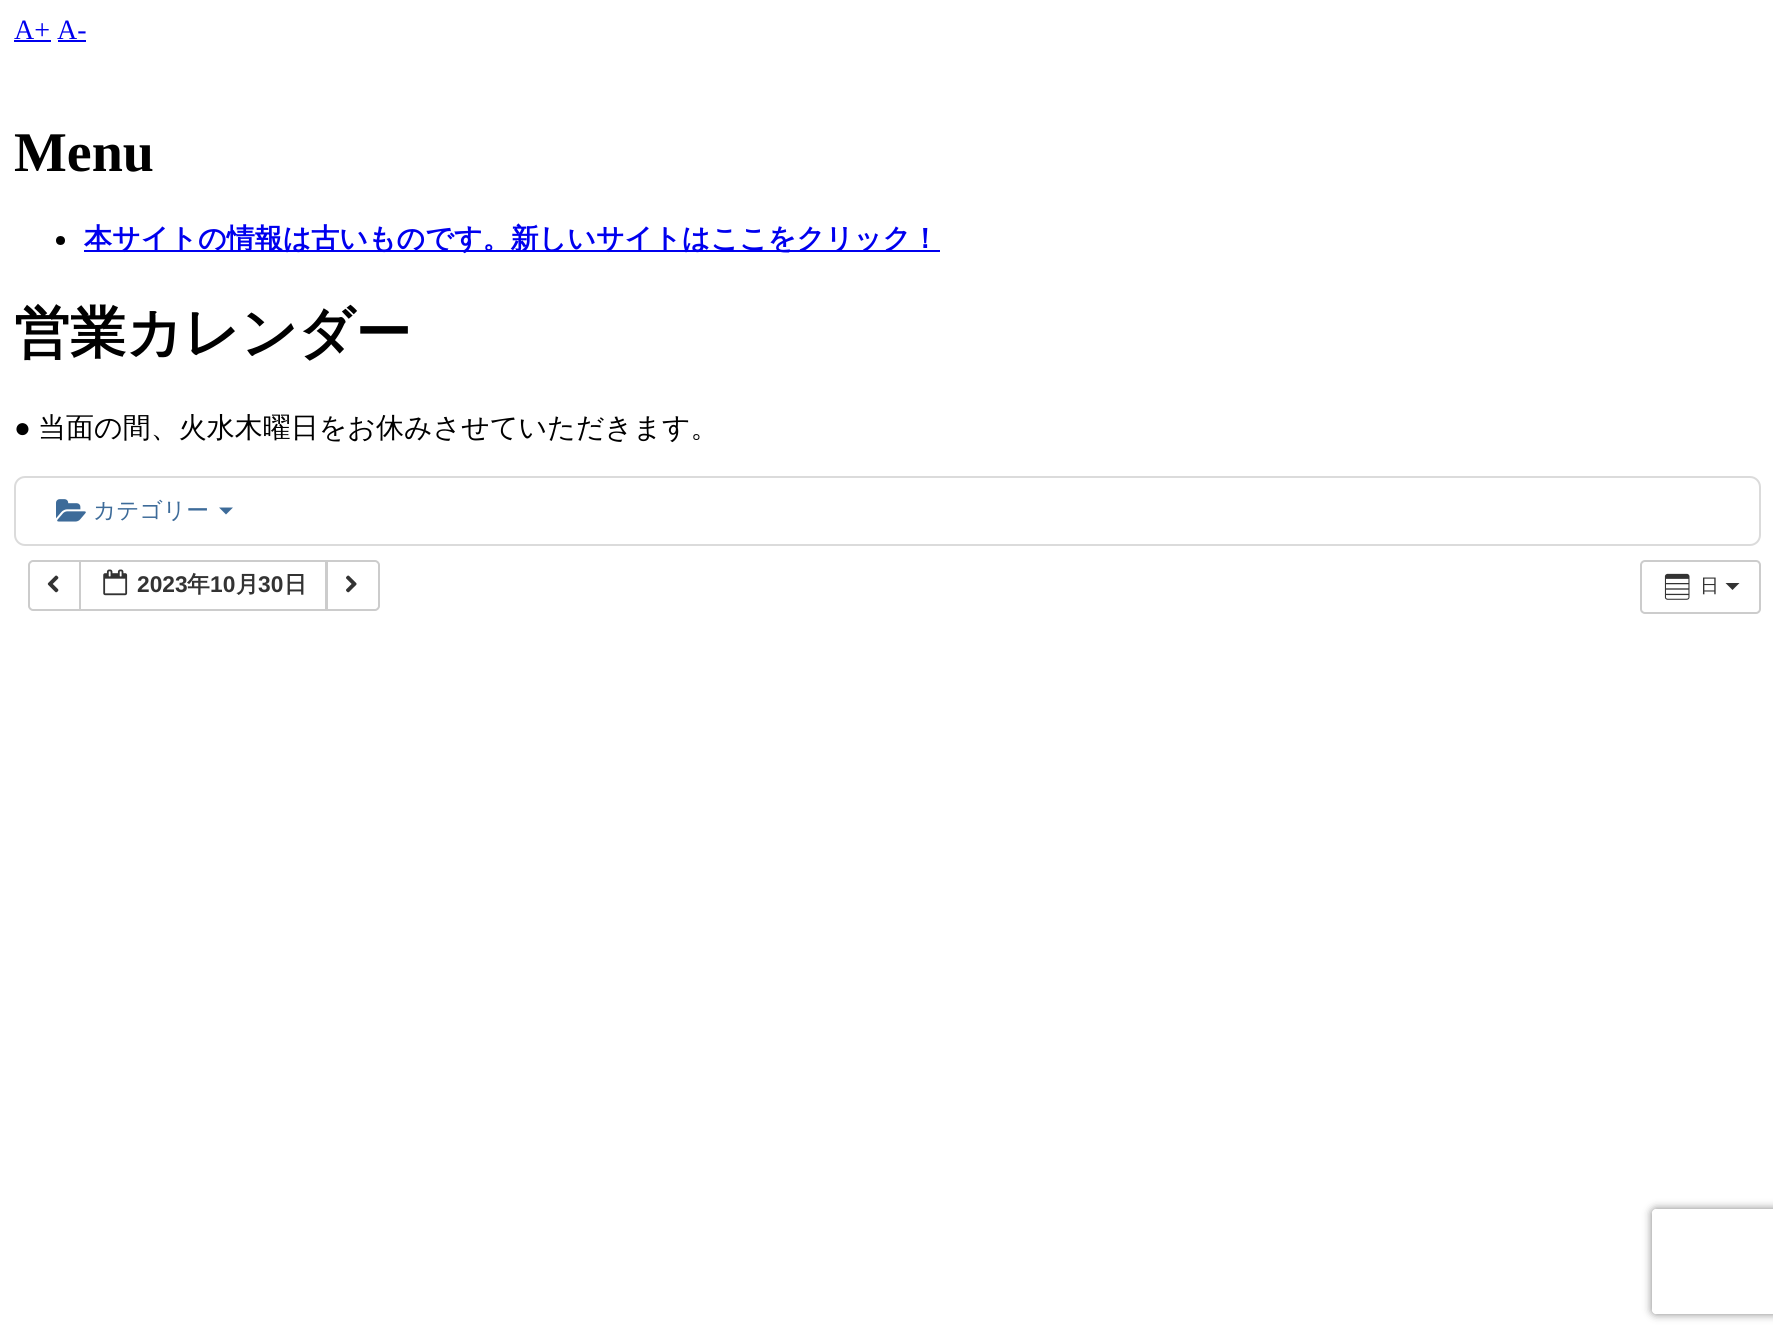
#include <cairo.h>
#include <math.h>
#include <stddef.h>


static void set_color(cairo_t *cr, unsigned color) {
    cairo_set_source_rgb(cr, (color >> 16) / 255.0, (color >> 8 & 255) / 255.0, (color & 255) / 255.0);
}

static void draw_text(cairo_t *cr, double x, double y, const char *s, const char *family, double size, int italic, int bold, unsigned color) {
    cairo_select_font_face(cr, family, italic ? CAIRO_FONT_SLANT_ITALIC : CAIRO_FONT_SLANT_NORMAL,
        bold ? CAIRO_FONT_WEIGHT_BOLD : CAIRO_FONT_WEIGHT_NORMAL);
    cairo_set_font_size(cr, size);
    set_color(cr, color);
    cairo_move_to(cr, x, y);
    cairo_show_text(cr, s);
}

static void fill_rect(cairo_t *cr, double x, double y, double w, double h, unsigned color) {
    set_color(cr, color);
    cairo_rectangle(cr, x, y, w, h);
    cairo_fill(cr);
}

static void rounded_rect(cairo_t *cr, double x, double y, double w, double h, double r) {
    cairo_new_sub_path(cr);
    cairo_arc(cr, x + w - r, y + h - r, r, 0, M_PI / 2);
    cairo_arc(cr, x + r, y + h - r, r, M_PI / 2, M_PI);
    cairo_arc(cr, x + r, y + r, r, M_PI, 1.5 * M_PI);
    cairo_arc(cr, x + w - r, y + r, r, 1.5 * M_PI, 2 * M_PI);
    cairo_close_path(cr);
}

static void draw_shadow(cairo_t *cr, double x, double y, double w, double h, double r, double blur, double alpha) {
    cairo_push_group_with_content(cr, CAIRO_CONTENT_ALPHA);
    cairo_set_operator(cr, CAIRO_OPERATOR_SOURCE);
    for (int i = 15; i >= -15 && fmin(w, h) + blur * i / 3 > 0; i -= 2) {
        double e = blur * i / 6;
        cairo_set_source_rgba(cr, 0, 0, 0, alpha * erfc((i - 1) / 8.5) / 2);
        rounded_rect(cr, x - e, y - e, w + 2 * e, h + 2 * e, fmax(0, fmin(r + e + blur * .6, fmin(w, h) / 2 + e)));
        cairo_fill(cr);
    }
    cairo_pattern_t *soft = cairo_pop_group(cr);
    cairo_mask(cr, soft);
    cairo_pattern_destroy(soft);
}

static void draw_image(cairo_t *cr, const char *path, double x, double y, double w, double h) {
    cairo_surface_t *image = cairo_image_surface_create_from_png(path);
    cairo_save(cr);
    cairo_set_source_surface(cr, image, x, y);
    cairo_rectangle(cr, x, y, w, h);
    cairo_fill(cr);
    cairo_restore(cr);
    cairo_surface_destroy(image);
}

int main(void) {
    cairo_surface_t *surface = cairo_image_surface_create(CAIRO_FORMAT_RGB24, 1773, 1338);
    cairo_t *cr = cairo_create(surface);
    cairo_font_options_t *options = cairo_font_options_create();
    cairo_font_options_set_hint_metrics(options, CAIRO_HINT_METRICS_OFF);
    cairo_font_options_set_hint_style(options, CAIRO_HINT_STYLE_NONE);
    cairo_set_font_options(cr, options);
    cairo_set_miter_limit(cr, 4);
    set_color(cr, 0xFFFFFF);
    cairo_paint(cr);
    draw_text(cr, 14, 39, "A+ A-", "Liberation Serif", 28, 0, 0, 0x0000EE);
    fill_rect(cr, 14, 40, 37, 2, 0x0000EE);
    fill_rect(cr, 58, 40, 28, 2, 0x0000EE);
    draw_text(cr, 14, 171, "Menu", "Liberation Serif", 56, 0, 1, 0x000000);
    cairo_new_path(cr);
    cairo_arc(cr, 60.5, 240.5, 4.5, 0, 2 * M_PI);
    cairo_fill(cr);
    fill_rect(cr, 84, 250, 856, 2, 0x0000EE);
    draw_text(cr, 84, 248, "本サイトの情報は古いものです。新しいサイトはここをクリック！", "WenQuanYi Zen Hei", 28, 0, 1, 0x0000EE);
    draw_text(cr, 14, 352, "営業カレンダー", "WenQuanYi Zen Hei", 56, 0, 1, 0x000000);
    draw_text(cr, 14, 437, "●", "Liberation Serif", 28, 0, 0, 0x000000);
    draw_text(cr, 38, 437, "当面の間、火水木曜日をお休みさせていただきます。", "WenQuanYi Zen Hei Medium", 28, 0, 0, 0x000000);
    rounded_rect(cr, 15, 477, 1745, 68, 10);
    set_color(cr, 0xDBDBDB);
    cairo_stroke(cr);
    draw_image(cr, "assets/img1.png", 56, 499, 30, 23);
    draw_text(cr, 93, 518, "カテゴリー", "WenQuanYi Zen Hei Medium", 22.75, 0, 0, 0x3D6B99);
    cairo_new_path(cr);
    cairo_move_to(cr, 219, 507.5);
    cairo_line_to(cr, 233, 507.5);
    cairo_line_to(cr, 226, 514.5);
    cairo_close_path(cr);
    cairo_fill(cr);
    cairo_new_path(cr);
    cairo_move_to(cr, 33, 561);
    cairo_line_to(cr, 80, 561);
    cairo_line_to(cr, 80, 610);
    cairo_line_to(cr, 33, 610);
    cairo_curve_to(cr, 31, 610, 29, 608, 29, 606);
    cairo_line_to(cr, 29, 565);
    cairo_curve_to(cr, 29, 563, 31, 561, 33, 561);
    cairo_close_path(cr);
    set_color(cr, 0xCCCCCC);
    cairo_stroke(cr);
    draw_image(cr, "assets/img2.png", 47, 575, 12, 18);
    cairo_rectangle(cr, 80, 561, 246, 49);
    cairo_stroke(cr);
    draw_image(cr, "assets/img3.png", 103, 569, 25, 27);
    draw_text(cr, 137, 592, "2023", "Liberation Sans", 22.75, 0, 1, 0x333333);
    draw_text(cr, 187, 592, "年", "WenQuanYi Zen Hei", 22.75, 0, 1, 0x333333);
    draw_text(cr, 210, 592, "10", "Liberation Sans", 22.75, 0, 1, 0x333333);
    draw_text(cr, 236, 592, "月", "WenQuanYi Zen Hei", 22.75, 0, 1, 0x333333);
    draw_text(cr, 258, 592, "30", "Liberation Sans", 22.75, 0, 1, 0x333333);
    draw_text(cr, 284, 592, "日", "WenQuanYi Zen Hei", 22.75, 0, 1, 0x333333);
    set_color(cr, 0xFFFFFF);
    cairo_new_path(cr);
    cairo_move_to(cr, 327, 561);
    cairo_line_to(cr, 375, 561);
    cairo_curve_to(cr, 377, 561, 379, 563, 379, 565);
    cairo_line_to(cr, 379, 606);
    cairo_curve_to(cr, 379, 608, 377, 610, 375, 610);
    cairo_line_to(cr, 327, 610);
    cairo_close_path(cr);
    cairo_fill_preserve(cr);
    set_color(cr, 0xCCCCCC);
    cairo_stroke(cr);
    draw_image(cr, "assets/img4.png", 346, 575, 11, 18);
    rounded_rect(cr, 1641, 561, 119, 52, 4);
    cairo_stroke(cr);
    draw_image(cr, "assets/img5.png", 1664, 573, 26, 27);
    draw_text(cr, 1700, 592, "日", "WenQuanYi Zen Hei Medium", 19, 0, 0, 0x333333);
    cairo_new_path(cr);
    cairo_move_to(cr, 1725.5, 583);
    cairo_line_to(cr, 1739.5, 583);
    cairo_line_to(cr, 1732.5, 590);
    cairo_close_path(cr);
    cairo_fill(cr);
    cairo_save(cr);
    cairo_set_fill_rule(cr, CAIRO_FILL_RULE_EVEN_ODD);
    cairo_new_path(cr);
    cairo_move_to(cr, 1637, 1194);
    cairo_line_to(cr, 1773, 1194);
    cairo_line_to(cr, 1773, 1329);
    cairo_line_to(cr, 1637, 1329);
    cairo_close_path(cr);
    cairo_move_to(cr, 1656, 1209);
    cairo_line_to(cr, 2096, 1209);
    cairo_curve_to(cr, 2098, 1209, 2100, 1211, 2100, 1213);
    cairo_line_to(cr, 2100, 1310);
    cairo_curve_to(cr, 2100, 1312, 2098, 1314, 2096, 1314);
    cairo_line_to(cr, 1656, 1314);
    cairo_curve_to(cr, 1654, 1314, 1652, 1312, 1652, 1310);
    cairo_line_to(cr, 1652, 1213);
    cairo_curve_to(cr, 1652, 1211, 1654, 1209, 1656, 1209);
    cairo_close_path(cr);
    cairo_clip(cr);
    set_color(cr, 0x808080);
    draw_shadow(cr, 1652, 1209, 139, 105, 4, 4.5, 1);
    cairo_restore(cr);
    cairo_surface_write_to_png(surface, "output.png");
    cairo_font_options_destroy(options);
    cairo_destroy(cr);
    cairo_surface_destroy(surface);
    return 0;
}
